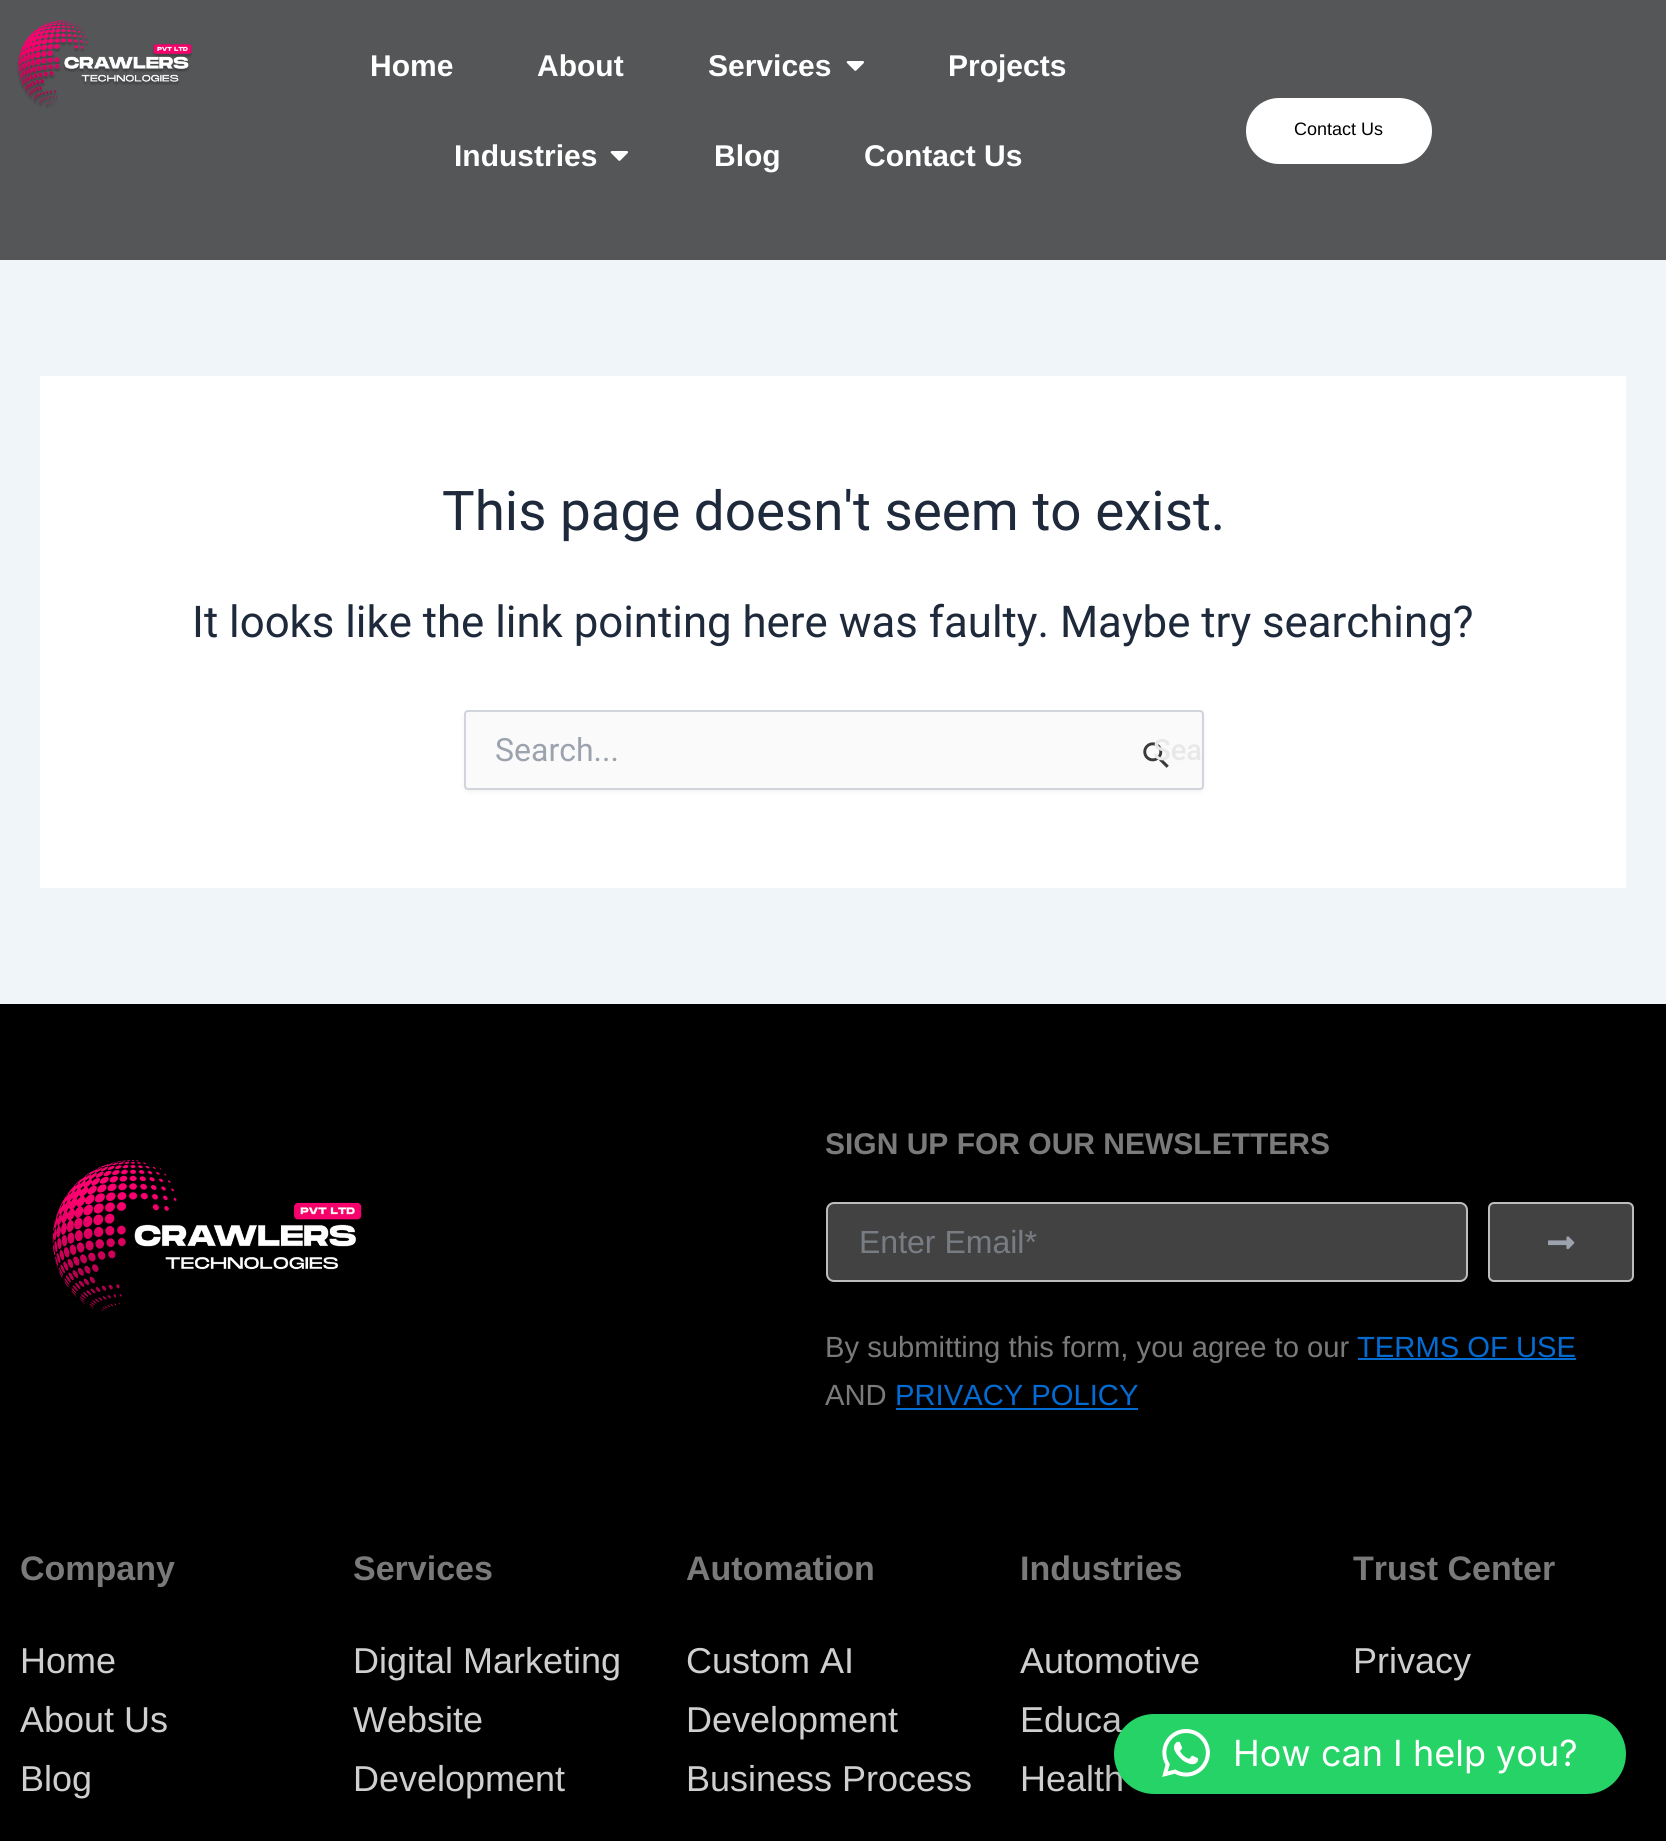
#include <cairo.h>
#include <math.h>
#include <stddef.h>


static void set_color(cairo_t *cr, unsigned color) {
    cairo_set_source_rgb(cr, (color >> 16) / 255.0, (color >> 8 & 255) / 255.0, (color & 255) / 255.0);
}

static void draw_text(cairo_t *cr, double x, double y, const char *s, const char *family, double size, int italic, int bold, unsigned color) {
    cairo_select_font_face(cr, family, italic ? CAIRO_FONT_SLANT_ITALIC : CAIRO_FONT_SLANT_NORMAL,
        bold ? CAIRO_FONT_WEIGHT_BOLD : CAIRO_FONT_WEIGHT_NORMAL);
    cairo_set_font_size(cr, size);
    set_color(cr, color);
    cairo_move_to(cr, x, y);
    cairo_show_text(cr, s);
}

static void fill_rect(cairo_t *cr, double x, double y, double w, double h, unsigned color) {
    set_color(cr, color);
    cairo_rectangle(cr, x, y, w, h);
    cairo_fill(cr);
}

static void rounded_rect(cairo_t *cr, double x, double y, double w, double h, double r) {
    cairo_new_sub_path(cr);
    cairo_arc(cr, x + w - r, y + h - r, r, 0, M_PI / 2);
    cairo_arc(cr, x + r, y + h - r, r, M_PI / 2, M_PI);
    cairo_arc(cr, x + r, y + r, r, M_PI, 1.5 * M_PI);
    cairo_arc(cr, x + w - r, y + r, r, 1.5 * M_PI, 2 * M_PI);
    cairo_close_path(cr);
}

static void draw_shadow(cairo_t *cr, double x, double y, double w, double h, double r, double blur, double alpha) {
    cairo_push_group_with_content(cr, CAIRO_CONTENT_ALPHA);
    cairo_set_operator(cr, CAIRO_OPERATOR_SOURCE);
    for (int i = 15; i >= -15 && fmin(w, h) + blur * i / 3 > 0; i -= 2) {
        double e = blur * i / 6;
        cairo_set_source_rgba(cr, 0, 0, 0, alpha * erfc((i - 1) / 8.5) / 2);
        rounded_rect(cr, x - e, y - e, w + 2 * e, h + 2 * e, fmax(0, fmin(r + e + blur * .6, fmin(w, h) / 2 + e)));
        cairo_fill(cr);
    }
    cairo_pattern_t *soft = cairo_pop_group(cr);
    cairo_mask(cr, soft);
    cairo_pattern_destroy(soft);
}

static void draw_image(cairo_t *cr, const char *path, double x, double y, double w, double h) {
    cairo_surface_t *image = cairo_image_surface_create_from_png(path);
    cairo_save(cr);
    cairo_set_source_surface(cr, image, x, y);
    cairo_rectangle(cr, x, y, w, h);
    cairo_fill(cr);
    cairo_restore(cr);
    cairo_surface_destroy(image);
}

int main(void) {
    cairo_surface_t *surface = cairo_image_surface_create(CAIRO_FORMAT_RGB24, 1666, 1841);
    cairo_t *cr = cairo_create(surface);
    cairo_font_options_t *options = cairo_font_options_create();
    cairo_font_options_set_hint_metrics(options, CAIRO_HINT_METRICS_OFF);
    cairo_font_options_set_hint_style(options, CAIRO_HINT_STYLE_NONE);
    cairo_set_font_options(cr, options);
    cairo_set_miter_limit(cr, 4);
    set_color(cr, 0xF0F5FA);
    cairo_paint(cr);
    fill_rect(cr, 0, 0, 1666, 260, 0x545657);
    draw_image(cr, "assets/img1.png", 17, 20, 175, 88);
    draw_text(cr, 370, 76, "Home", "Liberation Sans", 30, 0, 1, 0xFFFFFF);
    draw_text(cr, 537, 76, "About", "Liberation Sans", 30, 0, 1, 0xFFFFFF);
    draw_text(cr, 708, 76, "Services", "Liberation Sans", 30, 0, 1, 0xFFFFFF);
    draw_image(cr, "assets/img2.png", 846, 61, 19, 10);
    draw_text(cr, 948, 76, "Projects", "Liberation Sans", 30, 0, 1, 0xFFFFFF);
    draw_text(cr, 454, 166, "Industries", "Liberation Sans", 30, 0, 1, 0xFFFFFF);
    draw_image(cr, "assets/img2.png", 610, 151, 19, 10);
    draw_text(cr, 714, 166, "Blog", "Liberation Sans", 30, 0, 1, 0xFFFFFF);
    draw_text(cr, 864, 166, "Contact Us", "Liberation Sans", 30, 0, 1, 0xFFFFFF);
    rounded_rect(cr, 1246, 98, 186, 66, 33);
    cairo_fill(cr);
    draw_text(cr, 1294, 135, "Contact Us", "Liberation Sans", 18, 0, 0, 0x000000);
    fill_rect(cr, 40, 376, 1586, 512, 0xFFFFFF);
    draw_text(cr, 442, 530, "This page doesn't seem to exist.", "Roboto", 54.75, 0, 0, 0x1E293B);
    draw_text(cr, 192, 637, "It looks like the link pointing here was faulty. Maybe try searching?", "Roboto", 43.75, 0, 0, 0x1E293B);
    set_color(cr, 0x000000);
    draw_shadow(cr, 464, 712, 740, 80, 4, 2, 0.05);
    set_color(cr, 0xFAFAFA);
    rounded_rect(cr, 465, 711, 738, 78, 3);
    cairo_fill_preserve(cr);
    set_color(cr, 0xD1D5DB);
    cairo_stroke(cr);
    draw_text(cr, 495, 761, "Search...", "Roboto", 32, 0, 0, 0x9CA3AF);
    draw_image(cr, "assets/img3.png", 1143, 742, 26, 26);
    draw_text(cr, 1153, 760, "Sea", "Roboto Medium", 29.2, 0, 0, 0xE8E8E8);
    fill_rect(cr, 0, 1004, 1666, 837, 0x000000);
    draw_image(cr, "assets/img4.png", 52, 1160, 310, 152);
    draw_text(cr, 825, 1154, "SIGN UP FOR OUR NEWSLETTERS", "Liberation Sans", 30, 0, 1, 0x7A7A7A);
    set_color(cr, 0x424242);
    rounded_rect(cr, 827, 1203, 640, 78, 7);
    cairo_fill_preserve(cr);
    set_color(cr, 0xBDBDBD);
    cairo_stroke(cr);
    draw_text(cr, 859, 1253, "Enter Email*", "Liberation Sans", 32, 0, 0, 0x787C83);
    set_color(cr, 0x424242);
    rounded_rect(cr, 1489, 1203, 144, 78, 5);
    cairo_fill_preserve(cr);
    set_color(cr, 0xBDBDBD);
    cairo_stroke(cr);
    draw_image(cr, "assets/img5.png", 1548, 1236, 27, 14);
    draw_text(cr, 825, 1357, "By submitting this form, you agree to our", "Liberation Sans", 29.2, 0, 0, 0x7A7A7A);
    draw_text(cr, 1357, 1357, "TERMS OF USE", "Liberation Sans", 29.2, 0, 0, 0x046BD2);
    fill_rect(cr, 1358, 1358, 218, 2, 0x046BD2);
    draw_text(cr, 825, 1405, "AND", "Liberation Sans", 29.2, 0, 0, 0x7A7A7A);
    draw_text(cr, 895, 1405, "PRIVACY POLICY", "Liberation Sans", 29.2, 0, 0, 0x046BD2);
    fill_rect(cr, 896, 1408, 242, 2, 0x046BD2);
    draw_text(cr, 20, 1580, "Company", "Liberation Sans", 34, 0, 1, 0x7A7A7A);
    draw_text(cr, 20, 1673, "Home", "Liberation Sans", 36, 0, 0, 0xCFCFCF);
    draw_text(cr, 20, 1732, "About Us", "Liberation Sans", 36, 0, 0, 0xCFCFCF);
    draw_text(cr, 20, 1791, "Blog", "Liberation Sans", 36, 0, 0, 0xCFCFCF);
    draw_text(cr, 353, 1580, "Services", "Liberation Sans", 34, 0, 1, 0x7A7A7A);
    draw_text(cr, 353, 1673, "Digital Marketing", "Liberation Sans", 36, 0, 0, 0xCFCFCF);
    draw_text(cr, 353, 1732, "Website", "Liberation Sans", 36, 0, 0, 0xCFCFCF);
    draw_text(cr, 353, 1791, "Development", "Liberation Sans", 36, 0, 0, 0xCFCFCF);
    draw_text(cr, 686, 1580, "Automation", "Liberation Sans", 34, 0, 1, 0x7A7A7A);
    draw_text(cr, 686, 1673, "Custom AI", "Liberation Sans", 36, 0, 0, 0xCFCFCF);
    draw_text(cr, 686, 1732, "Development", "Liberation Sans", 36, 0, 0, 0xCFCFCF);
    draw_text(cr, 686, 1791, "Business Process", "Liberation Sans", 36, 0, 0, 0xCFCFCF);
    draw_text(cr, 1020, 1580, "Industries", "Liberation Sans", 34, 0, 1, 0x7A7A7A);
    draw_text(cr, 1020, 1673, "Automotive", "Liberation Sans", 36, 0, 0, 0xCFCFCF);
    draw_text(cr, 1020, 1732, "Educa", "Liberation Sans", 36, 0, 0, 0xCFCFCF);
    draw_text(cr, 1020, 1791, "Health", "Liberation Sans", 36, 0, 0, 0xCFCFCF);
    draw_text(cr, 1353, 1580, "Trust Center", "Liberation Sans", 34, 0, 1, 0x7A7A7A);
    draw_text(cr, 1353, 1673, "Privacy", "Liberation Sans", 36, 0, 0, 0xCFCFCF);
    set_color(cr, 0x000000);
    draw_shadow(cr, 1114, 1718, 512, 80, 40, 32, 0.16);
    set_color(cr, 0x25D366);
    rounded_rect(cr, 1114, 1714, 512, 80, 40);
    cairo_fill(cr);
    draw_image(cr, "assets/img6.png", 1162, 1729, 48, 48);
    draw_text(cr, 1233, 1766, "How can I help you?", "Inter", 36, 0, 0, 0xFFFFFF);
    cairo_surface_write_to_png(surface, "output.png");
    cairo_font_options_destroy(options);
    cairo_destroy(cr);
    cairo_surface_destroy(surface);
    return 0;
}
